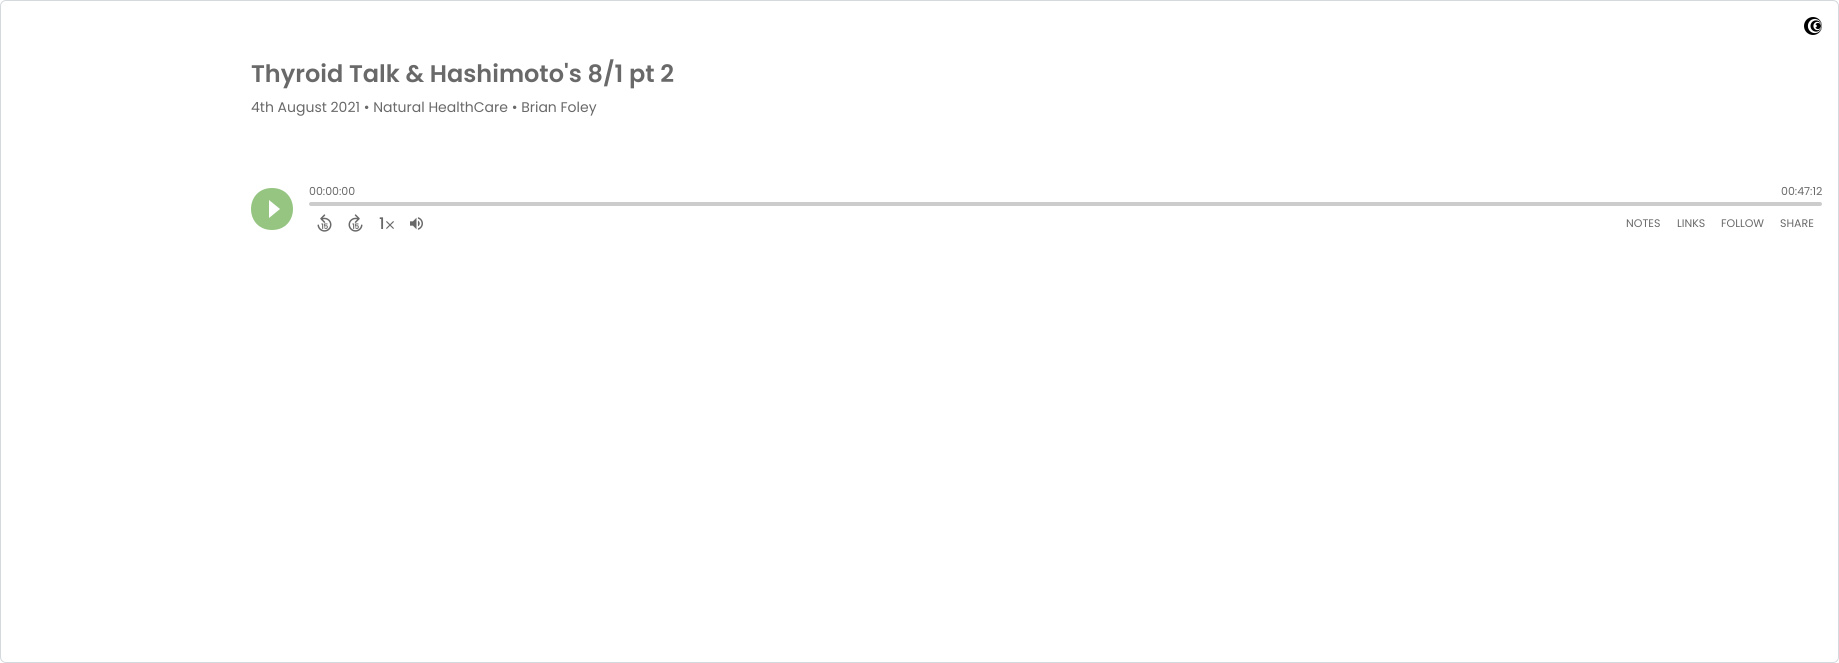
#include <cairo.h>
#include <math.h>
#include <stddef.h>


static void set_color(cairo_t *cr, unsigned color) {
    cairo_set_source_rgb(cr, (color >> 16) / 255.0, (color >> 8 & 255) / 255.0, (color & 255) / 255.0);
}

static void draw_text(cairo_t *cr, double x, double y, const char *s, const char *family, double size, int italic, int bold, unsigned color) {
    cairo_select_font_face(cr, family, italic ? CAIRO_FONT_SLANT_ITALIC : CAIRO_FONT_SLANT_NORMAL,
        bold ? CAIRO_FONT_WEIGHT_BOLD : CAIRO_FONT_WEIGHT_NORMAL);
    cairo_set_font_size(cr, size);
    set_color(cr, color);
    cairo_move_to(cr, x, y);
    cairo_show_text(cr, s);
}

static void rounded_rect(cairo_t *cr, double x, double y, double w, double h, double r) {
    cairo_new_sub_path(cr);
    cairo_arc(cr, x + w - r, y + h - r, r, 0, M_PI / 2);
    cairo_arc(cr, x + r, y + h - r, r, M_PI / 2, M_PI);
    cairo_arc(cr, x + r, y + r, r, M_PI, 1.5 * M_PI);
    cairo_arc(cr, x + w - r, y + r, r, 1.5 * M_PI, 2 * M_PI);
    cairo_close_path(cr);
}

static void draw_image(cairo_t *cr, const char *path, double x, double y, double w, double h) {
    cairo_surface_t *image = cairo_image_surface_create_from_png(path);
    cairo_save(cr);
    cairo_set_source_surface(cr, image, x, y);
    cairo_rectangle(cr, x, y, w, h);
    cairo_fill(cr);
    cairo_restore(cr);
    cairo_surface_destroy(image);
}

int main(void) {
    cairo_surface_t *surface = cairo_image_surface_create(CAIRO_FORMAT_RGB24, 1839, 663);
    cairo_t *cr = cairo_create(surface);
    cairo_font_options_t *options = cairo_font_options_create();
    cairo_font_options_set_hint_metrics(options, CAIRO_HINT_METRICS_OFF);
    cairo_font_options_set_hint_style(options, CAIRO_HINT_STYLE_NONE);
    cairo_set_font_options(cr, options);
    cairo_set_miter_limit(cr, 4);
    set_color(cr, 0xFFFFFF);
    cairo_paint(cr);
    rounded_rect(cr, 0.5, 0.5, 1838, 662, 5.5);
    set_color(cr, 0xD4D9DD);
    cairo_set_line_width(cr, 1);
    cairo_stroke(cr);
    draw_image(cr, "assets/img1.png", 1804, 17, 18, 18);
    draw_text(cr, 251, 82, "Thyroid Talk & Hashimoto's 8/1 pt 2", "Poppins SemiBold", 24, 0, 0, 0x696969);
    draw_text(cr, 251, 112, "4th August 2021 • Natural HealthCare • Brian Foley", "Poppins", 14, 0, 0, 0x696969);
    set_color(cr, 0x96C582);
    cairo_set_fill_rule(cr, CAIRO_FILL_RULE_EVEN_ODD);
    cairo_new_path(cr);
    cairo_move_to(cr, 272, 230);
    cairo_curve_to(cr, 300, 230, 300, 188, 272, 188);
    cairo_curve_to(cr, 244, 188, 244, 230, 272, 230);
    cairo_close_path(cr);
    cairo_move_to(cr, 269, 218);
    cairo_line_to(cr, 280, 209);
    cairo_line_to(cr, 269, 200);
    cairo_close_path(cr);
    cairo_fill(cr);
    draw_text(cr, 309, 195, "00:00:00", "Poppins", 11, 0, 0, 0x696969);
    draw_text(cr, 1781, 195, "00:47:12", "Poppins", 11, 0, 0, 0x696969);
    set_color(cr, 0xCCCCCC);
    rounded_rect(cr, 309, 202, 1513, 4, 2);
    cairo_fill(cr);
    draw_image(cr, "assets/img2.png", 317, 214, 15, 18);
    draw_image(cr, "assets/img3.png", 348, 214, 15, 18);
    draw_text(cr, 379, 229, "1", "Poppins Medium", 16, 0, 0, 0x696969);
    draw_image(cr, "assets/img4.png", 386, 221, 8, 8);
    draw_image(cr, "assets/img5.png", 410, 217, 13, 13);
    draw_text(cr, 1626, 227, "NOTES", "Poppins", 11, 0, 0, 0x696969);
    draw_text(cr, 1677, 227, "LINKS", "Poppins", 11, 0, 0, 0x696969);
    draw_text(cr, 1721, 227, "FOLLOW", "Poppins", 11, 0, 0, 0x696969);
    draw_text(cr, 1780, 227, "SHARE", "Poppins", 11, 0, 0, 0x696969);
    cairo_surface_write_to_png(surface, "output.png");
    cairo_font_options_destroy(options);
    cairo_destroy(cr);
    cairo_surface_destroy(surface);
    return 0;
}
